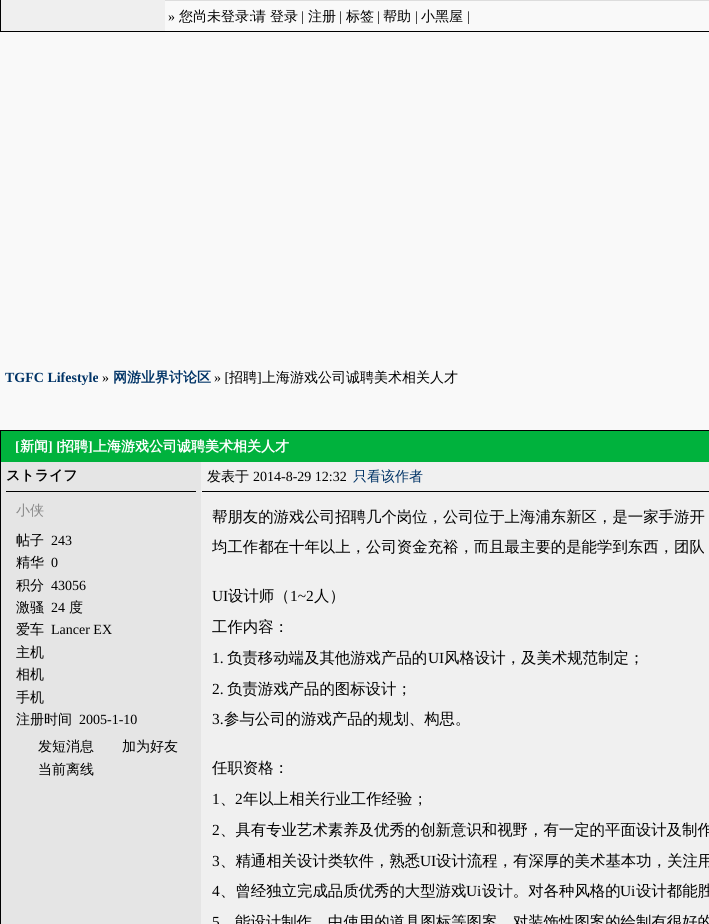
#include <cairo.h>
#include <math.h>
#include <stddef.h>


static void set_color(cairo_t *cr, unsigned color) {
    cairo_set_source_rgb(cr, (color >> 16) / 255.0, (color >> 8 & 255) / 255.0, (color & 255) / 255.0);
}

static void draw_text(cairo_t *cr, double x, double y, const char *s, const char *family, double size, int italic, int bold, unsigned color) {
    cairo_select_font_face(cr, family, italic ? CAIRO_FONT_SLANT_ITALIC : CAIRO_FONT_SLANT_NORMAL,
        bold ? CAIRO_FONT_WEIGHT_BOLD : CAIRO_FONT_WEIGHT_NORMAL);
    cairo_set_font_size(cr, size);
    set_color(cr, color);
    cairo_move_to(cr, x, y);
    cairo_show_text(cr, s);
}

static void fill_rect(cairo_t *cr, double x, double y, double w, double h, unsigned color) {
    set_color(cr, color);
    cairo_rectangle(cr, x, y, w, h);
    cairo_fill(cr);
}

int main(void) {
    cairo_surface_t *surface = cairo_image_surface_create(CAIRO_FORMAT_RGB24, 709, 924);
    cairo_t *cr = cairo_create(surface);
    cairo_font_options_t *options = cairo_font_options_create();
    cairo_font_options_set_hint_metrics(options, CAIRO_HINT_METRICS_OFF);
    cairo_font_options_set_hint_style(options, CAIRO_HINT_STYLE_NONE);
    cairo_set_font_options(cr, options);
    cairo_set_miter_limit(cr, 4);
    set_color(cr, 0xF9F9F9);
    cairo_paint(cr);
    cairo_rectangle(cr, 0.5, -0.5, 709, 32);
    set_color(cr, 0x000000);
    cairo_set_line_width(cr, 1);
    cairo_stroke(cr);
    fill_rect(cr, 1, 0, 164, 31, 0xEFEFEF);
    fill_rect(cr, 165, 0, 544, 1, 0xDDDDDD);
    draw_text(cr, 168, 21, "»", "Liberation Serif", 14, 0, 0, 0x000000);
    draw_text(cr, 179, 21, "您尚未登录", "WenQuanYi Zen Hei Medium", 14, 0, 0, 0x000000);
    draw_text(cr, 249, 21, ":", "Liberation Serif", 14, 0, 0, 0x000000);
    draw_text(cr, 252, 21, "请", "WenQuanYi Zen Hei Medium", 14, 0, 0, 0x000000);
    draw_text(cr, 270, 21, "登录", "WenQuanYi Zen Hei Medium", 14, 0, 0, 0x000000);
    draw_text(cr, 301, 21, "|", "Liberation Serif", 14, 0, 0, 0x000000);
    draw_text(cr, 308, 21, "注册", "WenQuanYi Zen Hei Medium", 14, 0, 0, 0x000000);
    draw_text(cr, 339, 21, "|", "Liberation Serif", 14, 0, 0, 0x000000);
    draw_text(cr, 346, 21, "标签", "WenQuanYi Zen Hei Medium", 14, 0, 0, 0x000000);
    draw_text(cr, 377, 21, "|", "Liberation Serif", 14, 0, 0, 0x000000);
    draw_text(cr, 383, 21, "帮助", "WenQuanYi Zen Hei Medium", 14, 0, 0, 0x000000);
    draw_text(cr, 415, 21, "|", "Liberation Serif", 14, 0, 0, 0x000000);
    draw_text(cr, 421, 21, "小黑屋", "WenQuanYi Zen Hei Medium", 14, 0, 0, 0x000000);
    draw_text(cr, 467, 21, "|", "Liberation Serif", 14, 0, 0, 0x000000);
    draw_text(cr, 5, 382, "TGFC Lifestyle", "Liberation Serif", 14, 0, 1, 0x003366);
    draw_text(cr, 102, 382, "»", "Liberation Serif", 14, 0, 0, 0x000000);
    draw_text(cr, 113, 382, "网游业界讨论区", "WenQuanYi Zen Hei", 14, 0, 1, 0x003366);
    draw_text(cr, 214, 382, "» [", "Liberation Serif", 14, 0, 0, 0x000000);
    draw_text(cr, 229, 382, "招聘", "WenQuanYi Zen Hei Medium", 14, 0, 0, 0x000000);
    draw_text(cr, 257, 382, "]", "Liberation Serif", 14, 0, 0, 0x000000);
    draw_text(cr, 262, 382, "上海游戏公司诚聘美术相关人才", "WenQuanYi Zen Hei Medium", 14, 0, 0, 0x000000);
    fill_rect(cr, 201, 462, 508, 462, 0xF0F0F0);
    cairo_rectangle(cr, 0.5, 430.5, 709, 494);
    set_color(cr, 0x000000);
    cairo_stroke(cr);
    fill_rect(cr, 1, 431, 708, 31, 0x00B23D);
    draw_text(cr, 15, 451, "[", "Liberation Serif", 14, 0, 1, 0xFFFFFF);
    draw_text(cr, 20, 451, "新闻", "WenQuanYi Zen Hei", 14, 0, 1, 0xFFFFFF);
    draw_text(cr, 48, 451, "] [", "Liberation Serif", 14, 0, 1, 0xFFFFFF);
    draw_text(cr, 60, 451, "招聘", "WenQuanYi Zen Hei", 14, 0, 1, 0xFFFFFF);
    draw_text(cr, 88, 451, "]", "Liberation Serif", 14, 0, 1, 0xFFFFFF);
    draw_text(cr, 93, 451, "上海游戏公司诚聘美术相关人才", "WenQuanYi Zen Hei", 14, 0, 1, 0xFFFFFF);
    fill_rect(cr, 1, 462, 200, 462, 0xE5E5E5);
    fill_rect(cr, 6, 491, 190, 1, 0x000000);
    draw_text(cr, 6, 480, "ストライフ", "WenQuanYi Zen Hei", 14, 0, 1, 0x000000);
    draw_text(cr, 16, 515, "小侠", "WenQuanYi Zen Hei Medium", 14, 0, 0, 0x888888);
    draw_text(cr, 16, 545, "帖子", "WenQuanYi Zen Hei Medium", 14, 0, 0, 0x000000);
    draw_text(cr, 51, 545, "243", "Liberation Serif", 14, 0, 0, 0x000000);
    draw_text(cr, 16, 567, "精华", "WenQuanYi Zen Hei Medium", 14, 0, 0, 0x000000);
    draw_text(cr, 51, 567, "0", "Liberation Serif", 14, 0, 0, 0x000000);
    draw_text(cr, 16, 590, "积分", "WenQuanYi Zen Hei Medium", 14, 0, 0, 0x000000);
    draw_text(cr, 51, 590, "43056", "Liberation Serif", 14, 0, 0, 0x000000);
    draw_text(cr, 16, 612, "激骚", "WenQuanYi Zen Hei Medium", 14, 0, 0, 0x000000);
    draw_text(cr, 51, 612, "24", "Liberation Serif", 14, 0, 0, 0x000000);
    draw_text(cr, 69, 612, "度", "WenQuanYi Zen Hei Medium", 14, 0, 0, 0x000000);
    draw_text(cr, 16, 634, "爱车", "WenQuanYi Zen Hei Medium", 14, 0, 0, 0x000000);
    draw_text(cr, 51, 634, "Lancer EX", "Liberation Serif", 14, 0, 0, 0x000000);
    draw_text(cr, 16, 657, "主机", "WenQuanYi Zen Hei Medium", 14, 0, 0, 0x000000);
    draw_text(cr, 16, 679, "相机", "WenQuanYi Zen Hei Medium", 14, 0, 0, 0x000000);
    draw_text(cr, 16, 702, "手机", "WenQuanYi Zen Hei Medium", 14, 0, 0, 0x000000);
    draw_text(cr, 16, 724, "注册时间", "WenQuanYi Zen Hei Medium", 14, 0, 0, 0x000000);
    draw_text(cr, 79, 724, "2005-1-10", "Liberation Serif", 14, 0, 0, 0x000000);
    draw_text(cr, 38, 751, "发短消息", "WenQuanYi Zen Hei Medium", 14, 0, 0, 0x000000);
    draw_text(cr, 122, 751, "加为好友", "WenQuanYi Zen Hei Medium", 14, 0, 0, 0x000000);
    draw_text(cr, 38, 774, "当前离线", "WenQuanYi Zen Hei Medium", 14, 0, 0, 0x000000);
    fill_rect(cr, 202, 491, 507, 1, 0x000000);
    draw_text(cr, 207, 481, "发表于", "WenQuanYi Zen Hei Medium", 14, 0, 0, 0x000000);
    draw_text(cr, 253, 481, "2014-8-29 12:32", "Liberation Serif", 14, 0, 0, 0x000000);
    draw_text(cr, 353, 481, "只看该作者", "WenQuanYi Zen Hei Medium", 14, 0, 0, 0x003366);
    draw_text(cr, 212, 522, "帮朋友的游戏公司招聘几个岗位，公司位于上海浦东新区，是一家手游开", "WenQuanYi Zen Hei Medium", 15.4, 0, 0, 0x000000);
    draw_text(cr, 212, 552, "均工作都在十年以上，公司资金充裕，而且最主要的是能学到东西，团队", "WenQuanYi Zen Hei Medium", 15.4, 0, 0, 0x000000);
    draw_text(cr, 212, 601, "UI", "Liberation Serif", 15.4, 0, 0, 0x000000);
    draw_text(cr, 228, 601, "设计师（", "WenQuanYi Zen Hei Medium", 15.4, 0, 0, 0x000000);
    draw_text(cr, 290, 601, "1~2", "Liberation Serif", 15.4, 0, 0, 0x000000);
    draw_text(cr, 314, 601, "人）", "WenQuanYi Zen Hei Medium", 15.4, 0, 0, 0x000000);
    draw_text(cr, 212, 632, "工作内容：", "WenQuanYi Zen Hei Medium", 15.4, 0, 0, 0x000000);
    draw_text(cr, 212, 663, "1.", "Liberation Serif", 15.4, 0, 0, 0x000000);
    draw_text(cr, 227, 663, "负责移动端及其他游戏产品的", "WenQuanYi Zen Hei Medium", 15.4, 0, 0, 0x000000);
    draw_text(cr, 428, 663, "UI", "Liberation Serif", 15.4, 0, 0, 0x000000);
    draw_text(cr, 444, 663, "风格设计，及美术规范制定；", "WenQuanYi Zen Hei Medium", 15.4, 0, 0, 0x000000);
    draw_text(cr, 212, 694, "2.", "Liberation Serif", 15.4, 0, 0, 0x000000);
    draw_text(cr, 227, 694, "负责游戏产品的图标设计；", "WenQuanYi Zen Hei Medium", 15.4, 0, 0, 0x000000);
    draw_text(cr, 212, 724, "3.", "Liberation Serif", 15.4, 0, 0, 0x000000);
    draw_text(cr, 224, 724, "参与公司的游戏产品的规划、构思。", "WenQuanYi Zen Hei Medium", 15.4, 0, 0, 0x000000);
    draw_text(cr, 212, 773, "任职资格：", "WenQuanYi Zen Hei Medium", 15.4, 0, 0, 0x000000);
    draw_text(cr, 212, 804, "1", "Liberation Serif", 15.4, 0, 0, 0x000000);
    draw_text(cr, 220, 804, "、", "WenQuanYi Zen Hei Medium", 15.4, 0, 0, 0x000000);
    draw_text(cr, 235, 804, "2", "Liberation Serif", 15.4, 0, 0, 0x000000);
    draw_text(cr, 243, 804, "年以上相关行业工作经验；", "WenQuanYi Zen Hei Medium", 15.4, 0, 0, 0x000000);
    draw_text(cr, 212, 835, "2", "Liberation Serif", 15.4, 0, 0, 0x000000);
    draw_text(cr, 220, 835, "、具有专业艺术素养及优秀的创新意识和视野，有一定的平面设计及制作", "WenQuanYi Zen Hei Medium", 15.4, 0, 0, 0x000000);
    draw_text(cr, 212, 866, "3", "Liberation Serif", 15.4, 0, 0, 0x000000);
    draw_text(cr, 220, 866, "、精通相关设计类软件，熟悉", "WenQuanYi Zen Hei Medium", 15.4, 0, 0, 0x000000);
    draw_text(cr, 420, 866, "UI", "Liberation Serif", 15.4, 0, 0, 0x000000);
    draw_text(cr, 436, 866, "设计流程，有深厚的美术基本功，关注用", "WenQuanYi Zen Hei Medium", 15.4, 0, 0, 0x000000);
    draw_text(cr, 212, 896, "4", "Liberation Serif", 15.4, 0, 0, 0x000000);
    draw_text(cr, 220, 896, "、曾经独立完成品质优秀的大型游戏", "WenQuanYi Zen Hei Medium", 15.4, 0, 0, 0x000000);
    draw_text(cr, 466, 896, "Ui", "Liberation Serif", 15.4, 0, 0, 0x000000);
    draw_text(cr, 482, 896, "设计。对各种风格的", "WenQuanYi Zen Hei Medium", 15.4, 0, 0, 0x000000);
    draw_text(cr, 620, 896, "Ui", "Liberation Serif", 15.4, 0, 0, 0x000000);
    draw_text(cr, 636, 896, "设计都能胜", "WenQuanYi Zen Hei Medium", 15.4, 0, 0, 0x000000);
    draw_text(cr, 212, 927, "5", "Liberation Serif", 15.4, 0, 0, 0x000000);
    draw_text(cr, 235, 927, "能设计制作", "WenQuanYi Zen Hei Medium", 15.4, 0, 0, 0x000000);
    draw_text(cr, 328, 927, "中使用的道具图标等图案，对装饰性图案的绘制有很好的", "WenQuanYi Zen Hei Medium", 15.4, 0, 0, 0x000000);
    cairo_surface_write_to_png(surface, "output.png");
    cairo_font_options_destroy(options);
    cairo_destroy(cr);
    cairo_surface_destroy(surface);
    return 0;
}
